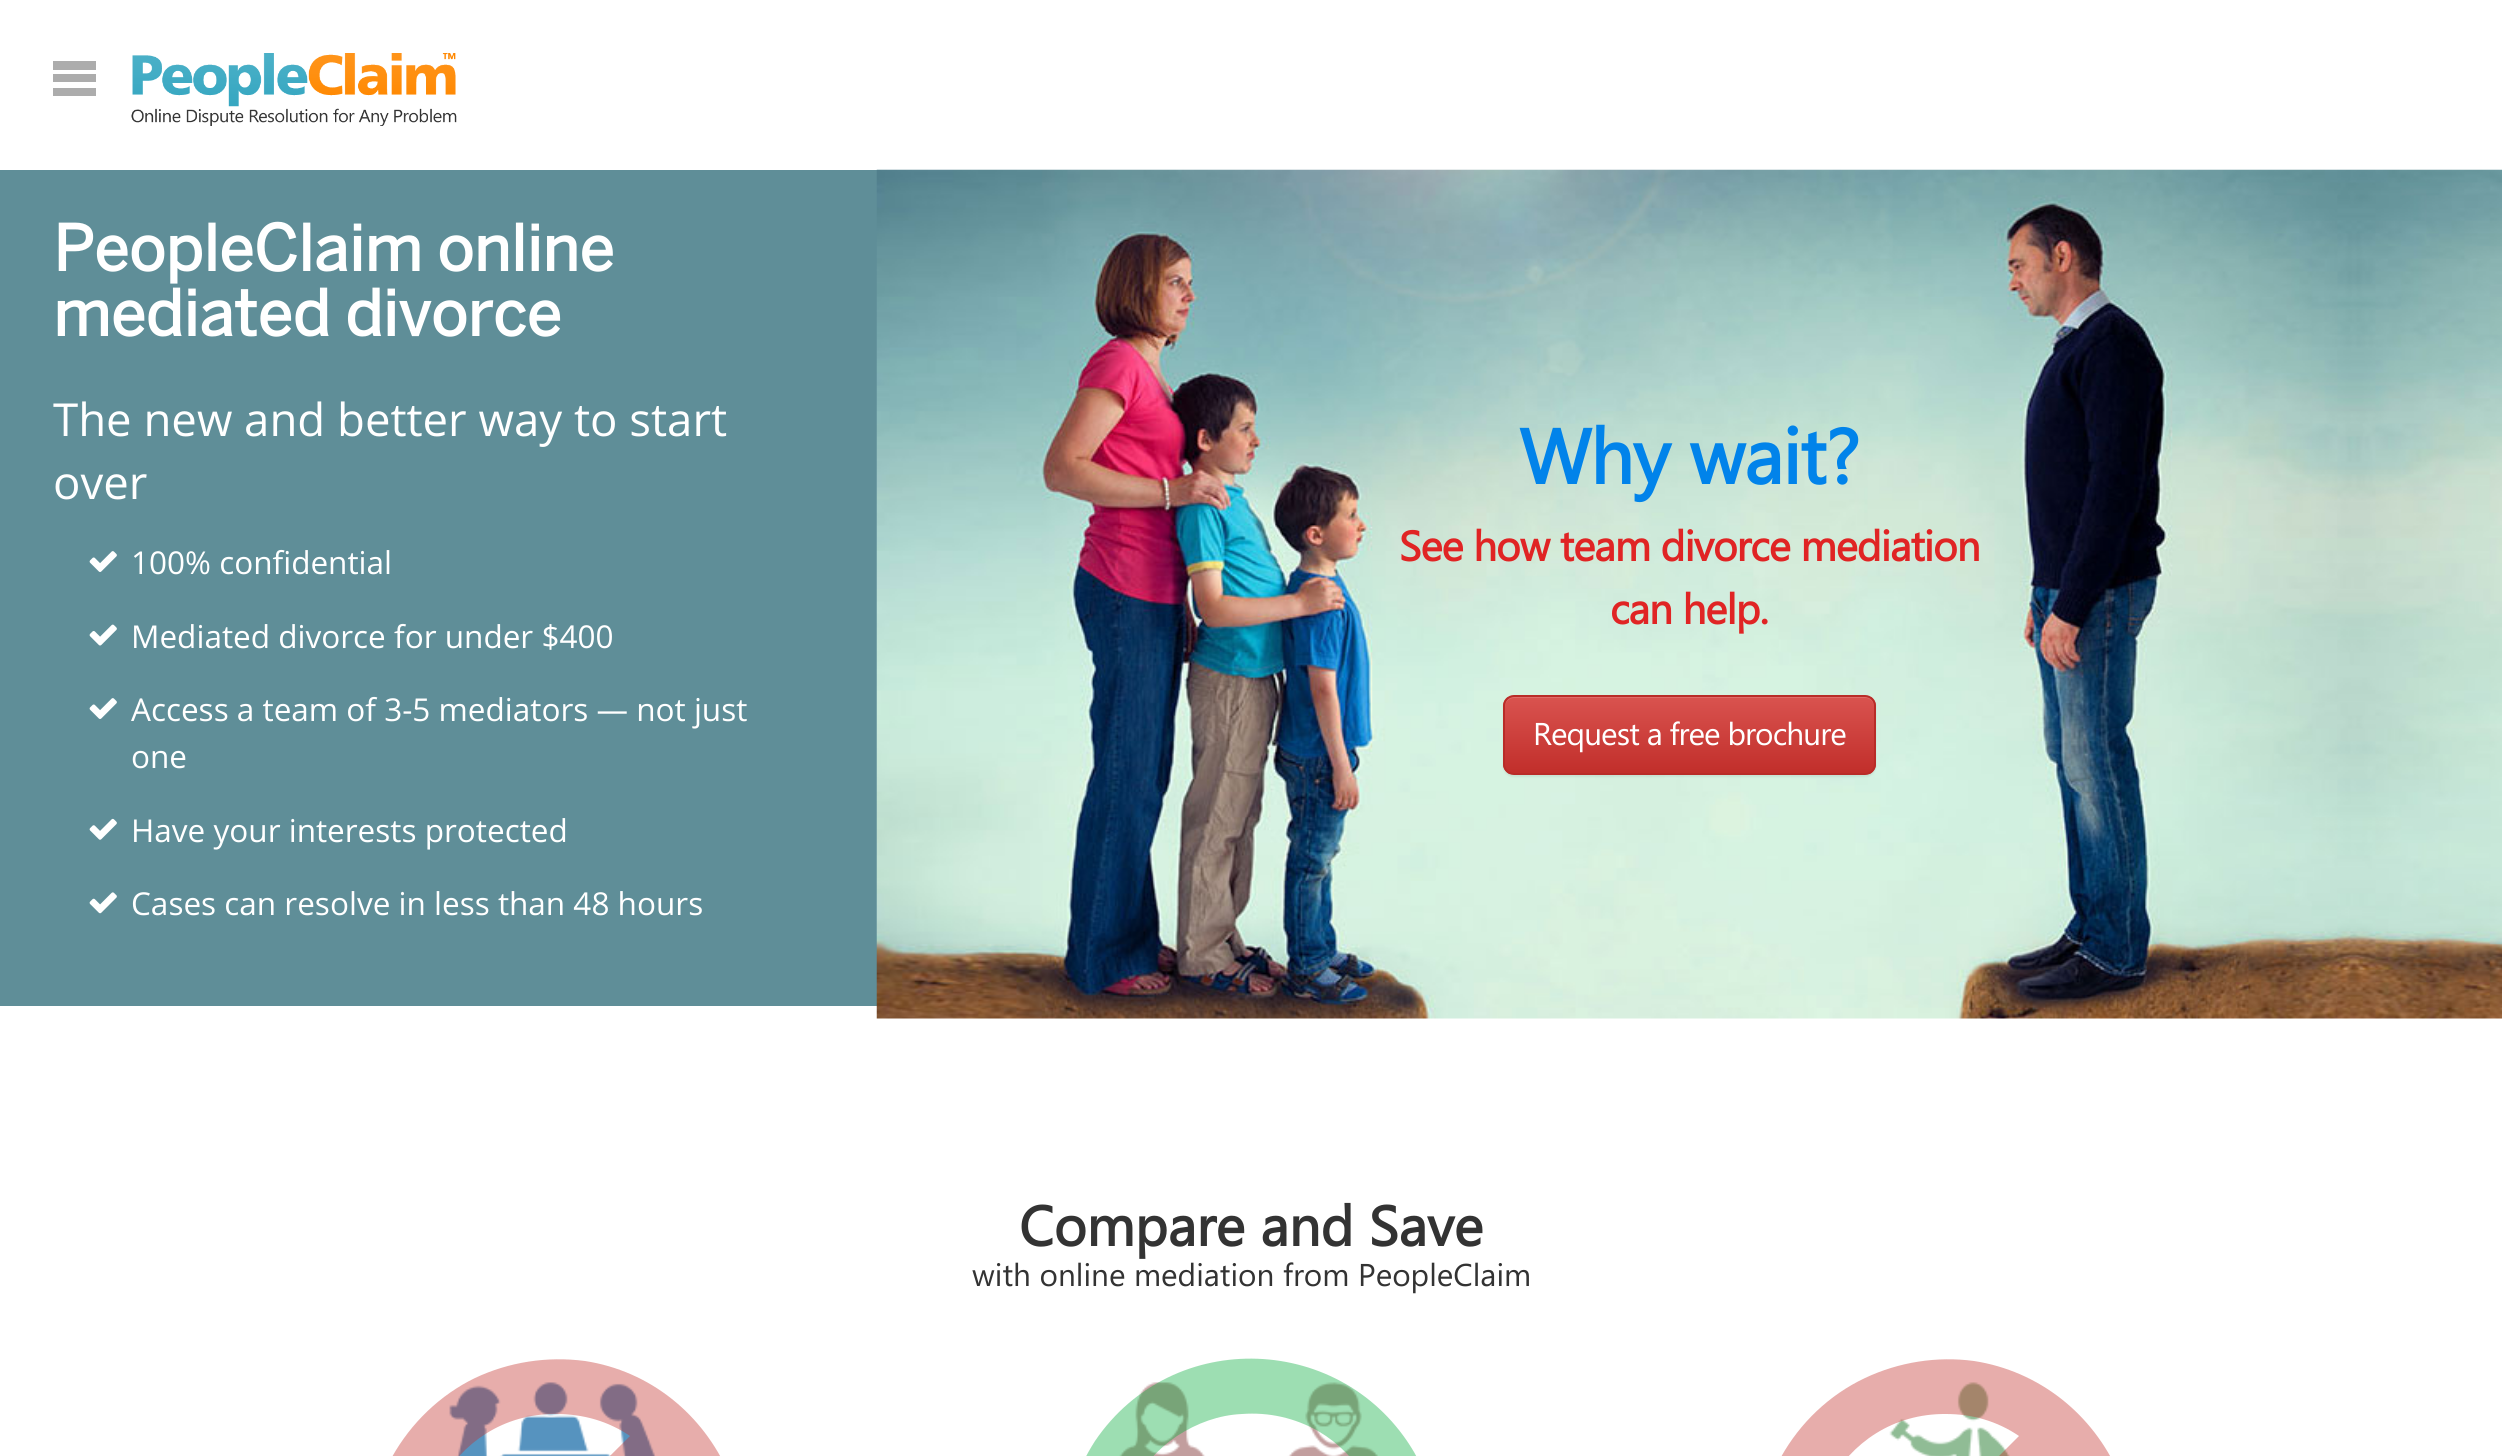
#include <cairo.h>
#include <math.h>
#include <stddef.h>


static void set_color(cairo_t *cr, unsigned color) {
    cairo_set_source_rgb(cr, (color >> 16) / 255.0, (color >> 8 & 255) / 255.0, (color & 255) / 255.0);
}

static void draw_text(cairo_t *cr, double x, double y, const char *s, const char *family, double size, int italic, int bold, unsigned color) {
    cairo_select_font_face(cr, family, italic ? CAIRO_FONT_SLANT_ITALIC : CAIRO_FONT_SLANT_NORMAL,
        bold ? CAIRO_FONT_WEIGHT_BOLD : CAIRO_FONT_WEIGHT_NORMAL);
    cairo_set_font_size(cr, size);
    set_color(cr, color);
    cairo_move_to(cr, x, y);
    cairo_show_text(cr, s);
}

static void draw_spaced(cairo_t *cr, double x, double y, const char *s, double letter, double word) {
    cairo_move_to(cr, x, y);
    while (*s) {
        char ch[5] = {0};
        int n = 0;
        do ch[n++] = *s++; while ((*s & 0xC0) == 0x80);
        cairo_show_text(cr, ch);
        cairo_rel_move_to(cr, letter + word * (*ch == ' '), 0);
    }
}

static void fill_rect(cairo_t *cr, double x, double y, double w, double h, unsigned color) {
    set_color(cr, color);
    cairo_rectangle(cr, x, y, w, h);
    cairo_fill(cr);
}

static void rounded_rect(cairo_t *cr, double x, double y, double w, double h, double r) {
    cairo_new_sub_path(cr);
    cairo_arc(cr, x + w - r, y + h - r, r, 0, M_PI / 2);
    cairo_arc(cr, x + r, y + h - r, r, M_PI / 2, M_PI);
    cairo_arc(cr, x + r, y + r, r, M_PI, 1.5 * M_PI);
    cairo_arc(cr, x + w - r, y + r, r, 1.5 * M_PI, 2 * M_PI);
    cairo_close_path(cr);
}

static void draw_shadow(cairo_t *cr, double x, double y, double w, double h, double r, double blur, double alpha) {
    cairo_push_group_with_content(cr, CAIRO_CONTENT_ALPHA);
    cairo_set_operator(cr, CAIRO_OPERATOR_SOURCE);
    for (int i = 15; i >= -15 && fmin(w, h) + blur * i / 3 > 0; i -= 2) {
        double e = blur * i / 6;
        cairo_set_source_rgba(cr, 0, 0, 0, alpha * erfc((i - 1) / 8.5) / 2);
        rounded_rect(cr, x - e, y - e, w + 2 * e, h + 2 * e, fmax(0, fmin(r + e + blur * .6, fmin(w, h) / 2 + e)));
        cairo_fill(cr);
    }
    cairo_pattern_t *soft = cairo_pop_group(cr);
    cairo_mask(cr, soft);
    cairo_pattern_destroy(soft);
}

static void draw_image(cairo_t *cr, const char *path, double x, double y, double w, double h) {
    cairo_surface_t *image = cairo_image_surface_create_from_png(path);
    cairo_save(cr);
    cairo_set_source_surface(cr, image, x, y);
    cairo_rectangle(cr, x, y, w, h);
    cairo_fill(cr);
    cairo_restore(cr);
    cairo_surface_destroy(image);
}

int main(void) {
    cairo_surface_t *surface = cairo_image_surface_create(CAIRO_FORMAT_RGB24, 2502, 1456);
    cairo_t *cr = cairo_create(surface);
    cairo_font_options_t *options = cairo_font_options_create();
    cairo_font_options_set_hint_metrics(options, CAIRO_HINT_METRICS_OFF);
    cairo_font_options_set_hint_style(options, CAIRO_HINT_STYLE_NONE);
    cairo_set_font_options(cr, options);
    cairo_set_miter_limit(cr, 4);
    cairo_pattern_t *gradient;
    set_color(cr, 0xFFFFFF);
    cairo_paint(cr);
    fill_rect(cr, 53, 74, 43, 8, 0xACACAC);
    fill_rect(cr, 53, 61, 43, 9, 0xACACAC);
    fill_rect(cr, 53, 88, 43, 8, 0xACACAC);
    draw_image(cr, "assets/img1.png", 131, 53, 326, 73);
    fill_rect(cr, 0, 170, 877, 836, 0x5F8E98);
    draw_text(cr, 53, 271, "PeopleClaim online", "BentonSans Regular", 63, 0, 1, 0xFFFFFF);
    draw_text(cr, 53, 336, "mediated divorce", "BentonSans Regular", 63, 0, 1, 0xFFFFFF);
    cairo_save(cr);
    cairo_rectangle(cr, 53, 222, 771, 732);
    cairo_clip(cr);
    draw_text(cr, 53, 436, "The new and better way to start", "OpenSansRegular", 45.5, 0, 0, 0xFFFFFF);
    cairo_restore(cr);
    draw_text(cr, 53, 499, "over", "OpenSansRegular", 45.5, 0, 0, 0xFFFFFF);
    draw_image(cr, "assets/img2.png", 89, 551, 28, 21);
    draw_text(cr, 131, 574, "100% confidential", "OpenSansRegular", 31.5, 0, 0, 0xFFFFFF);
    draw_image(cr, "assets/img3.png", 89, 624, 28, 22);
    draw_text(cr, 131, 648, "Mediated divorce for under $400", "OpenSansRegular", 31.5, 0, 0, 0xFFFFFF);
    draw_image(cr, "assets/img2.png", 89, 698, 28, 21);
    draw_text(cr, 131, 721, "Access a team of 3-5 mediators — not just", "OpenSansRegular", 31.5, 0, 0, 0xFFFFFF);
    draw_text(cr, 131, 768, "one", "OpenSansRegular", 31.5, 0, 0, 0xFFFFFF);
    draw_image(cr, "assets/img4.png", 89, 818, 28, 22);
    draw_text(cr, 131, 842, "Have your interests protected", "OpenSansRegular", 31.5, 0, 0, 0xFFFFFF);
    draw_image(cr, "assets/img5.png", 89, 892, 28, 22);
    draw_text(cr, 131, 915, "Cases can resolve in less than 48 hours", "OpenSansRegular", 31.5, 0, 0, 0xFFFFFF);
    draw_image(cr, "assets/img6.png", 876, 169, 1626, 850);
    cairo_select_font_face(cr, "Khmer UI", CAIRO_FONT_SLANT_NORMAL, CAIRO_FONT_WEIGHT_BOLD);
    cairo_set_font_size(cr, 77);
    set_color(cr, 0x0183EA);
    draw_spaced(cr, 1519, 484, "Why wait?", -0.9, 0);
    cairo_set_font_size(cr, 42);
    set_color(cr, 0xE02424);
    draw_spaced(cr, 1399, 561, "See how team divorce mediation", -0.9, 0);
    draw_spaced(cr, 1610, 624, "can help.", -0.9, 0);
    set_color(cr, 0x000000);
    draw_shadow(cr, 1503, 697, 373, 80, 11, 1, 0.07);
    cairo_save(cr);
    rounded_rect(cr, 1503, 695, 373, 80, 11);
    cairo_clip(cr);
    gradient = cairo_pattern_create_linear(1690, 697, 1690, 774);
    cairo_pattern_add_color_stop_rgba(gradient, 0, 0.851, 0.325, 0.31, 1);
    cairo_pattern_add_color_stop_rgba(gradient, 1, 0.757, 0.18, 0.165, 1);
    cairo_set_source(cr, gradient);
    cairo_pattern_destroy(gradient);
    cairo_rectangle(cr, 1503, 697, 373, 77);
    cairo_fill(cr);
    cairo_restore(cr);
    set_color(cr, 0xDF6D69);
    cairo_new_path(cr);
    cairo_move_to(cr, 1514, 698);
    cairo_line_to(cr, 1866, 698);
    cairo_curve_to(cr, 1870, 698, 1874, 702, 1874, 707);
    cairo_line_to(cr, 1874, 706);
    cairo_curve_to(cr, 1874, 701, 1870, 697, 1865, 697);
    cairo_line_to(cr, 1514, 697);
    cairo_curve_to(cr, 1509, 697, 1505, 701, 1505, 706);
    cairo_line_to(cr, 1505, 707);
    cairo_curve_to(cr, 1505, 702, 1509, 698, 1514, 698);
    cairo_close_path(cr);
    cairo_fill(cr);
    rounded_rect(cr, 1504, 696, 371, 78, 10);
    set_color(cr, 0xB92C28);
    cairo_stroke(cr);
    cairo_select_font_face(cr, "Khmer UI", CAIRO_FONT_SLANT_NORMAL, CAIRO_FONT_WEIGHT_NORMAL);
    cairo_set_font_size(cr, 31.5);
    set_color(cr, 0xFFFFFF);
    draw_spaced(cr, 1533, 745, "Request a free brochure", -0.9, 0);
    draw_text(cr, 1019, 1246, "Compare and Save", "Khmer UI", 56, 0, 1, 0x333333);
    draw_text(cr, 972, 1286, "with online mediation from PeopleClaim", "Khmer UI", 31.5, 0, 0, 0x333333);
    draw_image(cr, "assets/img7.png", 449, 1382, 207, 74);
    cairo_set_source_rgba(cr, 0.765, 0.196, 0.18, 0.4);
    cairo_new_path(cr);
    cairo_move_to(cr, 689, 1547);
    cairo_curve_to(cr, 689, 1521, 682, 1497, 668, 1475);
    cairo_line_to(cr, 484, 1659);
    cairo_curve_to(cr, 573, 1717, 689, 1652, 689, 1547);
    cairo_close_path(cr);
    cairo_move_to(cr, 445, 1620);
    cairo_line_to(cr, 630, 1436);
    cairo_curve_to(cr, 608, 1421, 583, 1414, 556, 1414);
    cairo_curve_to(cr, 451, 1413, 388, 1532, 445, 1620);
    cairo_close_path(cr);
    cairo_move_to(cr, 729, 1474);
    cairo_curve_to(cr, 770, 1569, 724, 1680, 629, 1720);
    cairo_curve_to(cr, 586, 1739, 536, 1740, 492, 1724);
    cairo_curve_to(cr, 384, 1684, 337, 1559, 392, 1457);
    cairo_curve_to(cr, 411, 1423, 440, 1395, 475, 1378);
    cairo_curve_to(cr, 509, 1362, 547, 1356, 585, 1361);
    cairo_curve_to(cr, 650, 1371, 703, 1414, 729, 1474);
    cairo_close_path(cr);
    cairo_fill(cr);
    draw_image(cr, "assets/img8.png", 1119, 1382, 259, 74);
    cairo_set_source_rgba(cr, 0.043, 0.678, 0.247, 0.4);
    cairo_new_path(cr);
    cairo_move_to(cr, 1318, 1431);
    cairo_curve_to(cr, 1295, 1418, 1269, 1412, 1242, 1414);
    cairo_curve_to(cr, 1219, 1415, 1197, 1423, 1177, 1436);
    cairo_curve_to(cr, 1096, 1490, 1100, 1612, 1185, 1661);
    cairo_curve_to(cr, 1207, 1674, 1234, 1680, 1260, 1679);
    cairo_curve_to(cr, 1284, 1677, 1306, 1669, 1325, 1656);
    cairo_curve_to(cr, 1407, 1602, 1402, 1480, 1318, 1431);
    cairo_close_path(cr);
    cairo_move_to(cr, 1414, 1452);
    cairo_curve_to(cr, 1432, 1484, 1441, 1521, 1438, 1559);
    cairo_curve_to(cr, 1436, 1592, 1425, 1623, 1407, 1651);
    cairo_curve_to(cr, 1330, 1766, 1158, 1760, 1089, 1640);
    cairo_curve_to(cr, 1070, 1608, 1062, 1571, 1064, 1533);
    cairo_curve_to(cr, 1066, 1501, 1077, 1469, 1095, 1441);
    cairo_curve_to(cr, 1173, 1326, 1344, 1333, 1414, 1452);
    cairo_close_path(cr);
    cairo_fill(cr);
    draw_image(cr, "assets/img9.png", 1889, 1382, 121, 74);
    cairo_set_source_rgba(cr, 0.765, 0.196, 0.18, 0.4);
    cairo_new_path(cr);
    cairo_move_to(cr, 2079, 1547);
    cairo_curve_to(cr, 2079, 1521, 2072, 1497, 2058, 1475);
    cairo_line_to(cr, 1873, 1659);
    cairo_curve_to(cr, 1963, 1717, 2079, 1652, 2079, 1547);
    cairo_close_path(cr);
    cairo_move_to(cr, 1835, 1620);
    cairo_line_to(cr, 2019, 1436);
    cairo_curve_to(cr, 1997, 1421, 1972, 1414, 1946, 1414);
    cairo_curve_to(cr, 1840, 1413, 1778, 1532, 1835, 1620);
    cairo_close_path(cr);
    cairo_move_to(cr, 2119, 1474);
    cairo_curve_to(cr, 2159, 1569, 2114, 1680, 2019, 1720);
    cairo_curve_to(cr, 1976, 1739, 1926, 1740, 1882, 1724);
    cairo_curve_to(cr, 1774, 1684, 1727, 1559, 1781, 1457);
    cairo_curve_to(cr, 1800, 1423, 1829, 1395, 1865, 1378);
    cairo_curve_to(cr, 1899, 1362, 1937, 1356, 1974, 1361);
    cairo_curve_to(cr, 2039, 1371, 2093, 1414, 2119, 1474);
    cairo_close_path(cr);
    cairo_fill(cr);
    cairo_surface_write_to_png(surface, "output.png");
    cairo_font_options_destroy(options);
    cairo_destroy(cr);
    cairo_surface_destroy(surface);
    return 0;
}
